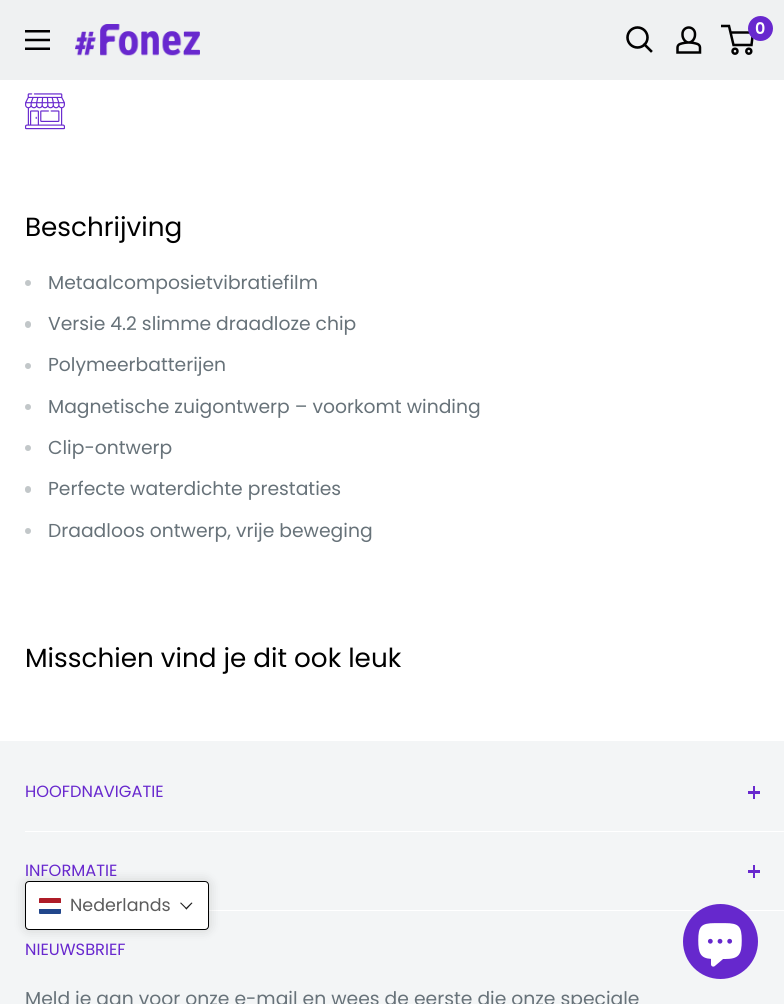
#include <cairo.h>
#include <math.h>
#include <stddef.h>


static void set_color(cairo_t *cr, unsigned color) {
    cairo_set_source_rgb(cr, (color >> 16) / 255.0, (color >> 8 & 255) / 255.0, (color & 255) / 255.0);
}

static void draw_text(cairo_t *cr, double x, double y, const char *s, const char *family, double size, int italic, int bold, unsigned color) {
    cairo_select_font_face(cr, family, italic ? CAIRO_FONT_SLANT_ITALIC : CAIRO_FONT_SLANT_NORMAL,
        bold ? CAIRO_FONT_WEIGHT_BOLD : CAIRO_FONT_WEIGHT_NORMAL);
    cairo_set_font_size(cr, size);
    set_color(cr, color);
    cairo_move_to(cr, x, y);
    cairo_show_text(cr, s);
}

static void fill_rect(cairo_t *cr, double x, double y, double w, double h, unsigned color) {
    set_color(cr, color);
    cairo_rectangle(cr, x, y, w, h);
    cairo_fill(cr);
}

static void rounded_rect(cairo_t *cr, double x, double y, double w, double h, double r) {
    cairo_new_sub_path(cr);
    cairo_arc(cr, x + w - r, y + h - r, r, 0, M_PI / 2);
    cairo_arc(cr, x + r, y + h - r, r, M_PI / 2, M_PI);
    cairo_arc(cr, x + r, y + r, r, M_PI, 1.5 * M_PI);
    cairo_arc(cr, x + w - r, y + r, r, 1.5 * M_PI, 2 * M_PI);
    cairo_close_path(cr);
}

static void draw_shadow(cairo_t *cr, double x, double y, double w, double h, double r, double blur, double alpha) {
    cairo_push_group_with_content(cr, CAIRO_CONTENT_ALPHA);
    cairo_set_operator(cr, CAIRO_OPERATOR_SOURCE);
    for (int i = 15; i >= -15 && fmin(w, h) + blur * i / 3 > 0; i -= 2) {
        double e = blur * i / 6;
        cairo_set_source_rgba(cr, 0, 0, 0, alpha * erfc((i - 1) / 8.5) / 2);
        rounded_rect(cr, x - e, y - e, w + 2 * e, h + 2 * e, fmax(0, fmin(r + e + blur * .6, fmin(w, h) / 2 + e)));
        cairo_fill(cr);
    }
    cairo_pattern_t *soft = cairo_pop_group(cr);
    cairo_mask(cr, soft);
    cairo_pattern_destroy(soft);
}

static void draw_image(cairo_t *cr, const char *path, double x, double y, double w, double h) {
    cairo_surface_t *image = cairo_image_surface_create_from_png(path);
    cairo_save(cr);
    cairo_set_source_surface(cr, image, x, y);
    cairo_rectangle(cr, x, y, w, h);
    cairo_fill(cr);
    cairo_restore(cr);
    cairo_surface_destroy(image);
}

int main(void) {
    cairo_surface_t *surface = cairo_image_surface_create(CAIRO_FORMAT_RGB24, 784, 1004);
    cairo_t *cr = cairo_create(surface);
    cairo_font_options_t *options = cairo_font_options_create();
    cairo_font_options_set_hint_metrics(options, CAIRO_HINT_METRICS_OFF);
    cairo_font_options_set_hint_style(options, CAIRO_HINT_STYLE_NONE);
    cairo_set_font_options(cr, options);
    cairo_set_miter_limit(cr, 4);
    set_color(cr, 0xFFFFFF);
    cairo_paint(cr);
    fill_rect(cr, 0, 0, 784, 80, 0xEFF1F2);
    draw_image(cr, "assets/img1.png", 25, 30, 25, 20);
    draw_image(cr, "assets/img2.png", 75, 24, 125, 32);
    cairo_new_path(cr);
    cairo_move_to(cr, 651, 51);
    cairo_line_to(cr, 644.5, 44.5);
    set_color(cr, 0x000000);
    cairo_set_line_width(cr, 2.6);
    cairo_set_line_cap(cr, CAIRO_LINE_CAP_SQUARE);
    cairo_stroke(cr);
    cairo_arc(cr, 637.5, 37.5, 10, 0, 2 * M_PI);
    cairo_set_line_cap(cr, CAIRO_LINE_CAP_BUTT);
    cairo_stroke(cr);
    draw_image(cr, "assets/img3.png", 676, 26, 26, 28);
    cairo_arc(cr, 735, 51.2, 2.5, 0, 2 * M_PI);
    cairo_set_line_width(cr, 2.5);
    cairo_stroke(cr);
    cairo_arc(cr, 748.8, 51.2, 2.5, 0, 2 * M_PI);
    cairo_stroke(cr);
    cairo_new_path(cr);
    cairo_move_to(cr, 730.5, 32.5);
    cairo_line_to(cr, 753, 32.5);
    cairo_line_to(cr, 751.5, 45);
    cairo_line_to(cr, 733.5, 45);
    cairo_line_to(cr, 729, 26);
    cairo_line_to(cr, 721, 26);
    cairo_stroke(cr);
    set_color(cr, 0x6828CE);
    cairo_arc(cr, 760.5, 28.5, 12.5, 0, 2 * M_PI);
    cairo_fill(cr);
    draw_text(cr, 755, 34, "0", "Poppins SemiBold", 16, 0, 0, 0xFFFFFF);
    draw_image(cr, "assets/img4.png", 25, 93, 40, 37);
    draw_text(cr, 25, 236, "Beschrijving", "Poppins", 26.25, 0, 0, 0x000000);
    set_color(cr, 0xC2C7C9);
    cairo_new_path(cr);
    cairo_arc(cr, 28, 283, 3, 0, 2 * M_PI);
    cairo_fill(cr);
    draw_text(cr, 48, 289, "Metaalcomposietvibratiefilm", "Poppins", 18.75, 0, 0, 0x677279);
    set_color(cr, 0xC2C7C9);
    rounded_rect(cr, 25, 321, 6, 7, 3);
    cairo_fill(cr);
    draw_text(cr, 48, 330, "Versie 4.2 slimme draadloze chip", "Poppins", 18.75, 0, 0, 0x677279);
    set_color(cr, 0xC2C7C9);
    cairo_new_path(cr);
    cairo_arc(cr, 28, 366, 3, 0, 2 * M_PI);
    cairo_fill(cr);
    draw_text(cr, 48, 371, "Polymeerbatterijen", "Poppins", 18.75, 0, 0, 0x677279);
    set_color(cr, 0xC2C7C9);
    cairo_new_path(cr);
    cairo_arc(cr, 28, 407, 3, 0, 2 * M_PI);
    cairo_fill(cr);
    draw_text(cr, 48, 413, "Magnetische zuigontwerp – voorkomt winding", "Poppins", 18.75, 0, 0, 0x677279);
    set_color(cr, 0xC2C7C9);
    cairo_new_path(cr);
    cairo_arc(cr, 28, 448, 3, 0, 2 * M_PI);
    cairo_fill(cr);
    draw_text(cr, 48, 454, "Clip-ontwerp", "Poppins", 18.75, 0, 0, 0x677279);
    set_color(cr, 0xC2C7C9);
    rounded_rect(cr, 25, 486, 6, 7, 3);
    cairo_fill(cr);
    draw_text(cr, 48, 495, "Perfecte waterdichte prestaties", "Poppins", 18.75, 0, 0, 0x677279);
    set_color(cr, 0xC2C7C9);
    cairo_new_path(cr);
    cairo_arc(cr, 28, 531, 3, 0, 2 * M_PI);
    cairo_fill(cr);
    draw_text(cr, 48, 537, "Draadloos ontwerp, vrije beweging", "Poppins", 18.75, 0, 0, 0x677279);
    draw_text(cr, 25, 667, "Misschien vind je dit ook leuk", "Poppins", 26.25, 0, 0, 0x000000);
    fill_rect(cr, 0, 741, 784, 263, 0xF3F5F6);
    fill_rect(cr, 25, 831, 759, 1, 0xFFFFFF);
    draw_text(cr, 25, 797, "HOOFDNAVIGATIE", "Poppins", 16.25, 0, 0, 0x6828CE);
    fill_rect(cr, 753, 786, 2, 13, 0x6828CE);
    fill_rect(cr, 748, 791, 12, 3, 0x6828CE);
    fill_rect(cr, 209, 910, 575, 1, 0xFFFFFF);
    draw_text(cr, 25, 876, "INFORMATIE", "Poppins", 16.25, 0, 0, 0x6828CE);
    fill_rect(cr, 753, 865, 2, 13, 0x6828CE);
    fill_rect(cr, 748, 870, 12, 3, 0x6828CE);
    draw_text(cr, 25, 955, "NIEUWSBRIEF", "Poppins", 16.25, 0, 0, 0x6828CE);
    draw_text(cr, 25, 1005, "Meld je aan voor onze e-mail en wees de eerste die onze speciale", "Poppins", 18.75, 0, 0, 0x677279);
    set_color(cr, 0x000000);
    draw_shadow(cr, 25, 881, 184, 49, 4, 6, 0.15);
    set_color(cr, 0xFFFFFF);
    rounded_rect(cr, 25.5, 881.5, 183, 48, 3.5);
    cairo_fill_preserve(cr);
    set_color(cr, 0x000000);
    cairo_set_line_width(cr, 1);
    cairo_stroke(cr);
    set_color(cr, 0x21468B);
    rounded_rect(cr, 39, 898, 22, 16, 1);
    cairo_fill(cr);
    set_color(cr, 0xFFFFFF);
    cairo_new_path(cr);
    cairo_move_to(cr, 40, 898);
    cairo_line_to(cr, 60, 898);
    cairo_curve_to(cr, 60.5, 898, 61, 898.5, 61, 899);
    cairo_line_to(cr, 61, 909);
    cairo_line_to(cr, 39, 909);
    cairo_line_to(cr, 39, 899);
    cairo_curve_to(cr, 39, 898.5, 39.5, 898, 40, 898);
    cairo_close_path(cr);
    cairo_fill(cr);
    set_color(cr, 0xAE1C28);
    cairo_new_path(cr);
    cairo_move_to(cr, 40, 898);
    cairo_line_to(cr, 60, 898);
    cairo_curve_to(cr, 60.5, 898, 61, 898.5, 61, 899);
    cairo_line_to(cr, 61, 903);
    cairo_line_to(cr, 39, 903);
    cairo_line_to(cr, 39, 899);
    cairo_curve_to(cr, 39, 898.5, 39.5, 898, 40, 898);
    cairo_close_path(cr);
    cairo_fill(cr);
    draw_text(cr, 70, 911, "Nederlands", "Poppins", 17.5, 0, 0, 0x5C5C5C);
    set_color(cr, 0x1A1A1A);
    cairo_new_path(cr);
    cairo_move_to(cr, 191.5, 902.5);
    cairo_line_to(cr, 192.5, 903);
    cairo_line_to(cr, 186.5, 909.5);
    cairo_line_to(cr, 185.5, 908.5);
    cairo_close_path(cr);
    cairo_fill(cr);
    cairo_new_path(cr);
    cairo_move_to(cr, 181, 902.5);
    cairo_line_to(cr, 187, 908.5);
    cairo_line_to(cr, 186.5, 909.5);
    cairo_line_to(cr, 180, 903);
    cairo_close_path(cr);
    cairo_fill(cr);
    set_color(cr, 0x6628CD);
    cairo_arc(cr, 720.5, 941.5, 37.5, 0, 2 * M_PI);
    cairo_fill(cr);
    draw_image(cr, "assets/img5.png", 698, 923, 44, 44);
    cairo_surface_write_to_png(surface, "output.png");
    cairo_font_options_destroy(options);
    cairo_destroy(cr);
    cairo_surface_destroy(surface);
    return 0;
}
